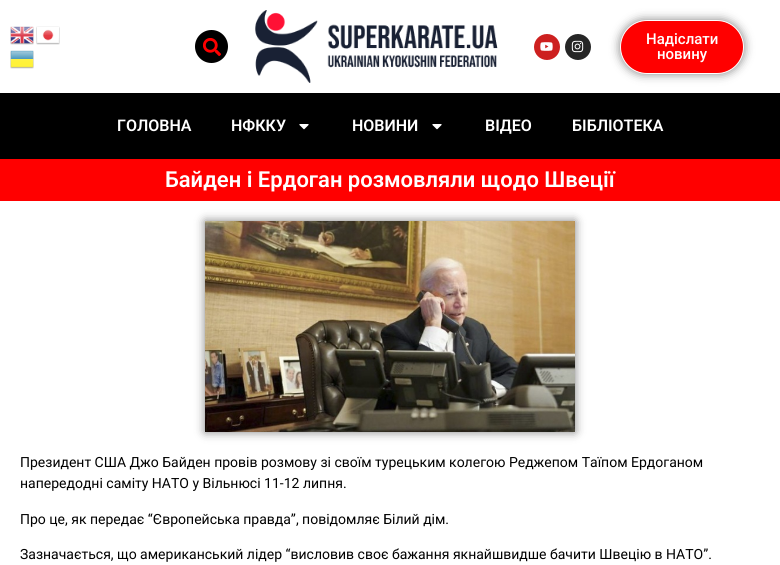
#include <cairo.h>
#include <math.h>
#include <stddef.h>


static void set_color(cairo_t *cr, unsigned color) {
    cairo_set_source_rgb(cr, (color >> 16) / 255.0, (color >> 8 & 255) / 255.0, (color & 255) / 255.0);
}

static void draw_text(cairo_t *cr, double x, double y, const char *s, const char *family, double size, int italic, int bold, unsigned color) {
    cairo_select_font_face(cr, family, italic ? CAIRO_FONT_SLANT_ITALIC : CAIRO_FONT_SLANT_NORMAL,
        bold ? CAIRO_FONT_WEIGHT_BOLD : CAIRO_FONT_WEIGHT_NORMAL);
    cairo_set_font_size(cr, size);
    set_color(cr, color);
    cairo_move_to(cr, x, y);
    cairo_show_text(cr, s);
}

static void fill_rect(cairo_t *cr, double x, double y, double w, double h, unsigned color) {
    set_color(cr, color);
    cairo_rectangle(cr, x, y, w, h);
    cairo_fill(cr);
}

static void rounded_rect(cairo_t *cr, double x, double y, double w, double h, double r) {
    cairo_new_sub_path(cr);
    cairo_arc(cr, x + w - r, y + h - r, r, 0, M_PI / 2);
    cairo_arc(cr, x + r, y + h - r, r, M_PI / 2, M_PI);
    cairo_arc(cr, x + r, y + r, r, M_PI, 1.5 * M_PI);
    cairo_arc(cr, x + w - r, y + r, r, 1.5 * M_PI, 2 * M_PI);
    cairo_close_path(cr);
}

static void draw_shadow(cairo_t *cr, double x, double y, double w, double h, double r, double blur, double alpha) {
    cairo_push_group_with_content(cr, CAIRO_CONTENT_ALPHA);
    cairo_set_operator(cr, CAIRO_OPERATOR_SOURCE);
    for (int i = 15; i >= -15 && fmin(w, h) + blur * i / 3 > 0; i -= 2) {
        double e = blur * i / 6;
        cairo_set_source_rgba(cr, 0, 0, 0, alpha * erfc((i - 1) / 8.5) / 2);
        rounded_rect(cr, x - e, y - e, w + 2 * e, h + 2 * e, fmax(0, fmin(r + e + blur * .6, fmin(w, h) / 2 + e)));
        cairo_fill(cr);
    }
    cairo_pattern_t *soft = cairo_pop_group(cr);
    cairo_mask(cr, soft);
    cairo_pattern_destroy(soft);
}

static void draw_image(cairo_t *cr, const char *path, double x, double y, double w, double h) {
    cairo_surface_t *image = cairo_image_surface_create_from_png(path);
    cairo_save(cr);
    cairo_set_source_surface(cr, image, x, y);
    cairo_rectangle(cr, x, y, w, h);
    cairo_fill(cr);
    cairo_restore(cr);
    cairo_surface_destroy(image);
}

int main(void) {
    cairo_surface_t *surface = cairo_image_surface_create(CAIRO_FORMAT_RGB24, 780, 565);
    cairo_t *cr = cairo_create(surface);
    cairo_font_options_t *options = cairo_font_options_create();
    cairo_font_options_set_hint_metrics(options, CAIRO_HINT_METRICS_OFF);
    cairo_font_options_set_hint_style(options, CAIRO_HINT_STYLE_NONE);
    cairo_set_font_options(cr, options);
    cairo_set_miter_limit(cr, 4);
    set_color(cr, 0xFFFFFF);
    cairo_paint(cr);
    draw_image(cr, "assets/img1.png", 10, 26, 24, 19);
    draw_image(cr, "assets/img2.png", 36, 26, 24, 19);
    draw_image(cr, "assets/img3.png", 10, 50, 24, 19);
    set_color(cr, 0x000000);
    cairo_arc(cr, 211.5, 46.5, 16.5, 0, 2 * M_PI);
    cairo_fill(cr);
    draw_image(cr, "assets/img4.png", 203, 38, 18, 18);
    draw_image(cr, "assets/img5.png", 255, 10, 243, 73);
    set_color(cr, 0xCD201F);
    cairo_arc(cr, 547, 47, 13, 0, 2 * M_PI);
    cairo_fill(cr);
    draw_image(cr, "assets/img6.png", 540, 42, 13, 9);
    set_color(cr, 0x262626);
    cairo_arc(cr, 578, 47, 13, 0, 2 * M_PI);
    cairo_fill(cr);
    draw_image(cr, "assets/img7.png", 571, 40, 13, 13);
    set_color(cr, 0x000000);
    draw_shadow(cr, 620, 20, 124, 54, 27, 5, 0.5);
    set_color(cr, 0xFF0000);
    rounded_rect(cr, 620.5, 20.5, 123, 53, 26.5);
    cairo_fill_preserve(cr);
    set_color(cr, 0xFFFFFF);
    cairo_set_line_width(cr, 1);
    cairo_stroke(cr);
    draw_text(cr, 646, 44, "Надіслати", "Roboto Medium", 15, 0, 0, 0xFFFFFF);
    draw_text(cr, 657, 59, "новину", "Roboto Medium", 15, 0, 0, 0xFFFFFF);
    fill_rect(cr, 0, 93, 780, 66, 0x000000);
    draw_text(cr, 117, 131, "ГОЛОВНА", "Roboto SemiBold", 16, 0, 0, 0xFFFFFF);
    draw_text(cr, 231, 131, "НФККУ", "Roboto SemiBold", 16, 0, 0, 0xFFFFFF);
    draw_image(cr, "assets/img8.png", 299, 124, 10, 6);
    draw_text(cr, 352, 131, "НОВИНИ", "Roboto SemiBold", 16, 0, 0, 0xFFFFFF);
    draw_image(cr, "assets/img8.png", 432, 124, 10, 6);
    draw_text(cr, 485, 131, "ВІДЕО", "Roboto SemiBold", 16, 0, 0, 0xFFFFFF);
    draw_text(cr, 572, 131, "БІБЛІОТЕКА", "Roboto SemiBold", 16, 0, 0, 0xFFFFFF);
    fill_rect(cr, 0, 159, 780, 42, 0xFF0000);
    draw_text(cr, 165, 187, "Байден і Ердоган розмовляли щодо Швеції", "Roboto SemiBold", 22, 0, 0, 0xFFFFFF);
    set_color(cr, 0x000000);
    draw_shadow(cr, 205, 221, 370, 211, 0, 5, 0.5);
    draw_image(cr, "assets/img9.png", 205, 221, 370, 211);
    draw_text(cr, 20, 467, "Президент США Джо Байден провів розмову зі своїм турецьким колегою Реджепом Таїпом Ердоганом", "Roboto", 14, 0, 0, 0x000000);
    draw_text(cr, 20, 488, "напередодні саміту НАТО у Вільнюсі 11-12 липня.", "Roboto", 14, 0, 0, 0x000000);
    draw_text(cr, 20, 524, "Про це, як передає “Європейська правда”, повідомляє Білий дім.", "Roboto", 14, 0, 0, 0x000000);
    draw_text(cr, 20, 559, "Зазначається, що американський лідер “висловив своє бажання якнайшвидше бачити Швецію в НАТО”.", "Roboto", 14, 0, 0, 0x000000);
    cairo_surface_write_to_png(surface, "output.png");
    cairo_font_options_destroy(options);
    cairo_destroy(cr);
    cairo_surface_destroy(surface);
    return 0;
}
